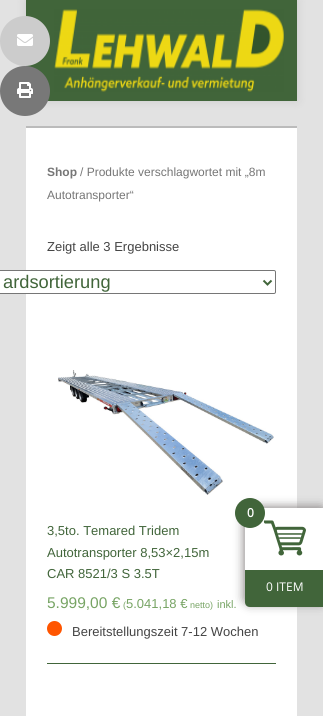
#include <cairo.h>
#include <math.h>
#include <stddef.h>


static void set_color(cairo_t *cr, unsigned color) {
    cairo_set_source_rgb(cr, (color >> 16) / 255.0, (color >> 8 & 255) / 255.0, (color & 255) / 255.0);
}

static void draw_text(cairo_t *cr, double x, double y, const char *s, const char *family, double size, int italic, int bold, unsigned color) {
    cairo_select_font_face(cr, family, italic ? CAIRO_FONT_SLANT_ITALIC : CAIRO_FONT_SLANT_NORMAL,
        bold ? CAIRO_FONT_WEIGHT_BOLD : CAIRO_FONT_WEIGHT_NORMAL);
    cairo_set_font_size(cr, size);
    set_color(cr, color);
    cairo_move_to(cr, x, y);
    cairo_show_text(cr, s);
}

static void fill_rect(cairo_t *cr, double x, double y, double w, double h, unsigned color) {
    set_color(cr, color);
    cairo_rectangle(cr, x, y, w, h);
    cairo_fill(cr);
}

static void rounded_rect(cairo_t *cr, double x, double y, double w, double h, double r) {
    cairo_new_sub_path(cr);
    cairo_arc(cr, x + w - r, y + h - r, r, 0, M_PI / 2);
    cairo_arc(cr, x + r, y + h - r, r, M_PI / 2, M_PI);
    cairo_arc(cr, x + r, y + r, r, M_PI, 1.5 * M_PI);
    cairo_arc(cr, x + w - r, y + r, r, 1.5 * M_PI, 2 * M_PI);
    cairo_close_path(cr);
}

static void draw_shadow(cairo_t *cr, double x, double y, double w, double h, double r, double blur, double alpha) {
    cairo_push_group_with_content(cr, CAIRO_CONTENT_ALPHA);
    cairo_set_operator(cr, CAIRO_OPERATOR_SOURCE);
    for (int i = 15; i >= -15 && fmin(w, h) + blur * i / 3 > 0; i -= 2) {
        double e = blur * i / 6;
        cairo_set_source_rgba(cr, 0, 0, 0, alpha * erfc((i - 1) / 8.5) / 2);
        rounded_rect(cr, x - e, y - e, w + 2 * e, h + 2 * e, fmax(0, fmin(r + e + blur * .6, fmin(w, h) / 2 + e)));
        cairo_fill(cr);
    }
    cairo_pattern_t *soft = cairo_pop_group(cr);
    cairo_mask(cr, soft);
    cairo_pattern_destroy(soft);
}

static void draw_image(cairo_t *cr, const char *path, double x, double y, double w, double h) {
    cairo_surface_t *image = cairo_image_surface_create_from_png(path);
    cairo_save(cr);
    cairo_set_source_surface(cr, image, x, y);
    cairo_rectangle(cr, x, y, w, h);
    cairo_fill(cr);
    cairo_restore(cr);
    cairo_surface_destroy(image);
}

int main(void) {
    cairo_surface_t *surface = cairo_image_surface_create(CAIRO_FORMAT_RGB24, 323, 716);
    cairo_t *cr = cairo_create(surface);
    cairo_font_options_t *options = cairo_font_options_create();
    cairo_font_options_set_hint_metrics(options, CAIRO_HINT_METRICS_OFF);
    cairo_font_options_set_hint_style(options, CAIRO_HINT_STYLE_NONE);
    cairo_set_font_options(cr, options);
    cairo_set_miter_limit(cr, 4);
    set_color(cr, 0xE2E2E2);
    cairo_paint(cr);
    set_color(cr, 0x000000);
    draw_shadow(cr, 26, 0, 271, 101, 0, 5, 0.1);
    fill_rect(cr, 26, 0, 271, 101, 0x41653A);
    draw_image(cr, "assets/img1.png", 54, 9, 230, 83);
    set_color(cr, 0xCCCCCC);
    cairo_arc(cr, 25, 41, 25, 0, 2 * M_PI);
    cairo_fill(cr);
    draw_image(cr, "assets/img2.png", 17, 34, 16, 12);
    set_color(cr, 0x787878);
    cairo_arc(cr, 25, 91, 25, 0, 2 * M_PI);
    cairo_fill(cr);
    draw_image(cr, "assets/img3.png", 17, 82, 16, 16);
    fill_rect(cr, 26, 128, 271, 588, 0xFFFFFF);
    fill_rect(cr, 26, 126, 271, 2, 0xBBBBBB);
    draw_text(cr, 47, 176, "Shop", "Liberation Sans", 12, 0, 1, 0x767676);
    draw_text(cr, 80, 176, "/ Produkte verschlagwortet mit „8m", "Liberation Sans", 12, 0, 0, 0x767676);
    draw_text(cr, 47, 199, "Autotransporter“", "Liberation Sans", 12, 0, 0, 0x767676);
    draw_text(cr, 47, 251, "Zeigt alle 3 Ergebnisse", "Liberation Sans", 13, 0, 0, 0x444444);
    set_color(cr, 0xFFFFFF);
    rounded_rect(cr, -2.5, 270.5, 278, 23, 1.5);
    cairo_fill_preserve(cr);
    set_color(cr, 0x767676);
    cairo_set_line_width(cr, 1);
    cairo_stroke(cr);
    cairo_new_path(cr);
    cairo_move_to(cr, 263.5, 280.5);
    cairo_line_to(cr, 267.5, 284.5);
    cairo_line_to(cr, 271.5, 280.5);
    set_color(cr, 0x41653A);
    cairo_set_line_width(cr, 2);
    cairo_stroke(cr);
    draw_text(cr, 3, 288, "ardsortierung", "Liberation Sans", 18.25, 0, 0, 0x41653A);
    fill_rect(cr, 47, 663, 229, 1, 0x41653A);
    draw_image(cr, "assets/img4.png", 58, 370, 216, 125);
    draw_text(cr, 47, 535, "3,5to. Temared Tridem", "Liberation Sans", 13, 0, 0, 0x41653A);
    draw_text(cr, 47, 557, "Autotransporter 8,53×2,15m", "Liberation Sans", 13, 0, 0, 0x41653A);
    draw_text(cr, 47, 578, "CAR 8521/3 S 3.5T", "Liberation Sans", 13, 0, 0, 0x41653A);
    draw_text(cr, 47, 608, "5.999,00 €", "Liberation Sans", 15.5, 0, 0, 0x77A464);
    draw_text(cr, 123, 608, "(", "Liberation Sans", 9, 0, 0, 0x77A464);
    draw_text(cr, 126, 608, "5.041,18 €", "Liberation Sans", 13, 0, 0, 0x77A464);
    draw_text(cr, 190, 608, "netto)", "Liberation Sans", 9, 0, 0, 0x77A464);
    draw_text(cr, 217, 608, "inkl.", "Liberation Sans", 11, 0, 0, 0x77A464);
    set_color(cr, 0xFF5500);
    cairo_new_path(cr);
    cairo_arc(cr, 54.5, 628.5, 7.5, 0, 2 * M_PI);
    cairo_fill(cr);
    draw_text(cr, 72, 636, "Bereitstellungszeit 7-12 Wochen", "Liberation Sans", 13, 0, 0, 0x444444);
    set_color(cr, 0x858080);
    draw_shadow(cr, 244, 507, 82, 97, 6, 5, 1);
    fill_rect(cr, 245, 508, 78, 62, 0xFFFFFF);
    draw_image(cr, "assets/img5.png", 263, 520, 43, 36);
    set_color(cr, 0x41653A);
    cairo_arc(cr, 250, 513, 15, 0, 2 * M_PI);
    cairo_fill(cr);
    draw_text(cr, 247, 517, "0", "Open Sans", 12, 0, 1, 0xFFFFFF);
    set_color(cr, 0x41653A);
    cairo_new_path(cr);
    cairo_move_to(cr, 245, 570);
    cairo_line_to(cr, 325, 570);
    cairo_line_to(cr, 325, 607);
    cairo_line_to(cr, 250, 607);
    cairo_curve_to(cr, 247, 607, 245, 605, 245, 602);
    cairo_close_path(cr);
    cairo_fill(cr);
    draw_text(cr, 266, 591, "0 ITEM", "Open Sans", 12, 0, 0, 0xFFFFFF);
    cairo_surface_write_to_png(surface, "output.png");
    cairo_font_options_destroy(options);
    cairo_destroy(cr);
    cairo_surface_destroy(surface);
    return 0;
}
